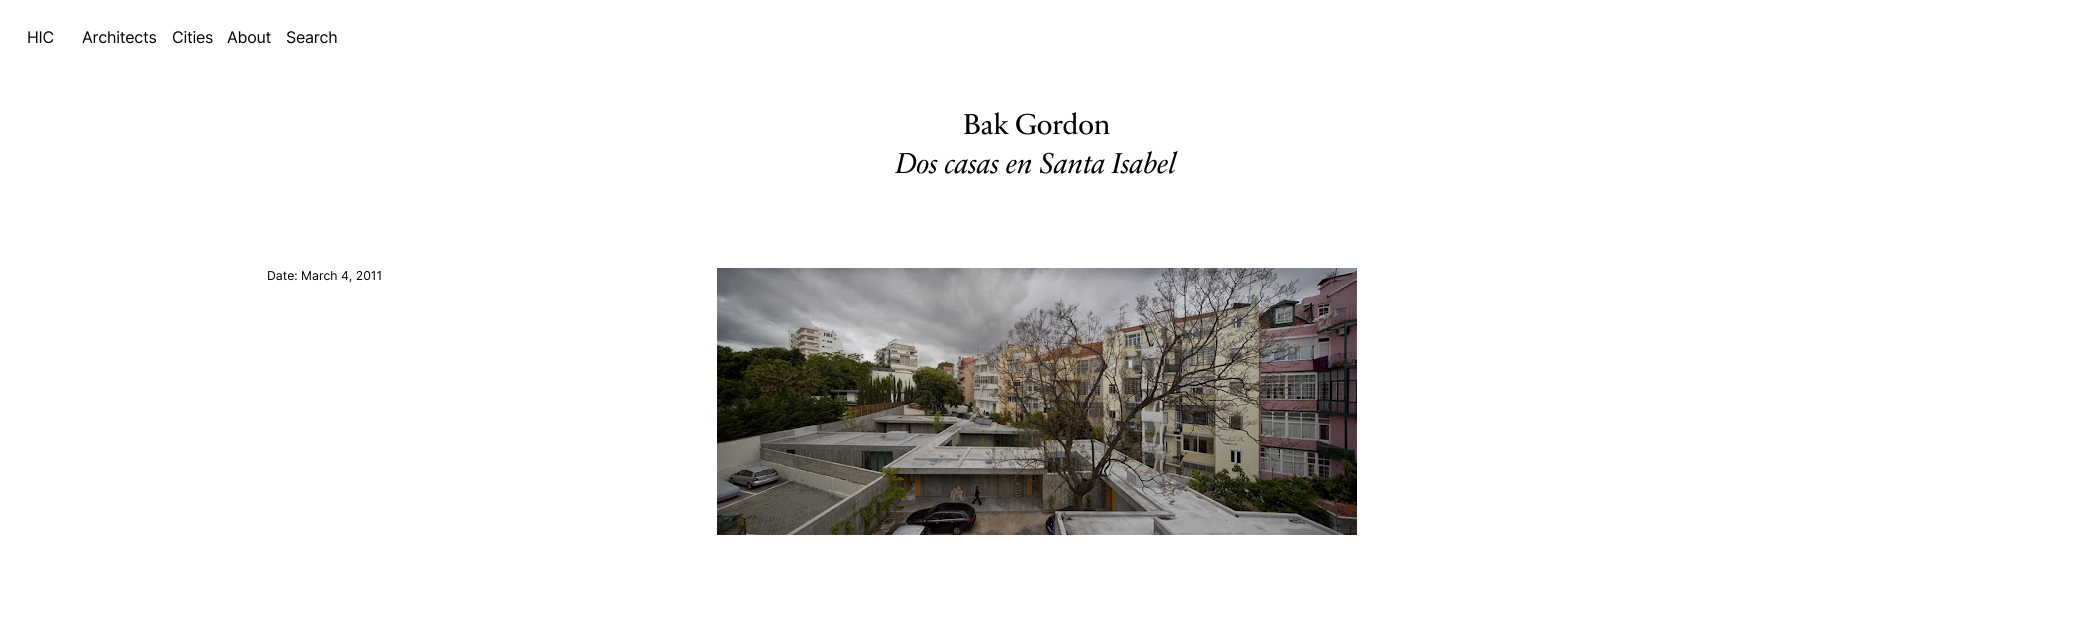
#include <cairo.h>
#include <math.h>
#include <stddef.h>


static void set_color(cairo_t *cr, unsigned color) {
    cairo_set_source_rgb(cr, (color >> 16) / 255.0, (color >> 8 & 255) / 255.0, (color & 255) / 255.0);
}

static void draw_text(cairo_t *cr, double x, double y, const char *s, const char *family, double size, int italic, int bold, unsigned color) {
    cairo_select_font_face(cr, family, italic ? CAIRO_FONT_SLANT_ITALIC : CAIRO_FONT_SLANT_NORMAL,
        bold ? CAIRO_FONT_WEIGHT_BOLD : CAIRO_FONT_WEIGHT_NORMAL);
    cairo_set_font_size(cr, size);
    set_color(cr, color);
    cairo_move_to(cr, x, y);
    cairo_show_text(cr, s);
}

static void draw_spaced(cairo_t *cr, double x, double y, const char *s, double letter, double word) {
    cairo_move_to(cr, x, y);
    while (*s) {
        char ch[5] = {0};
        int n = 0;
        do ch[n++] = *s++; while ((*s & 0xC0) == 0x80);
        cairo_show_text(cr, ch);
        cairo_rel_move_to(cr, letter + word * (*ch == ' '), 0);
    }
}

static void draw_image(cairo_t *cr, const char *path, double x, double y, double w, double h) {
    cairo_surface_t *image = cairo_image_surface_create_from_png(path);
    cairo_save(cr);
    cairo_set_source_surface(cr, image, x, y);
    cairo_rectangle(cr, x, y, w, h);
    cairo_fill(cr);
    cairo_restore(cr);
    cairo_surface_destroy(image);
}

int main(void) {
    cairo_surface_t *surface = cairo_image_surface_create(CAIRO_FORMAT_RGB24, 2073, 634);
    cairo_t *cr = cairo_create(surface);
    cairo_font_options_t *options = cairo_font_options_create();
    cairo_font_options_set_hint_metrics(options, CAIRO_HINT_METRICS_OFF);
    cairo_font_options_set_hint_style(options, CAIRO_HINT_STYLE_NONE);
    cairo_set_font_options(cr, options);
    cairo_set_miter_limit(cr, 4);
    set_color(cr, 0xFFFFFF);
    cairo_paint(cr);
    cairo_select_font_face(cr, "Inter", CAIRO_FONT_SLANT_NORMAL, CAIRO_FONT_WEIGHT_NORMAL);
    cairo_set_font_size(cr, 16);
    set_color(cr, 0x000000);
    draw_spaced(cr, 27, 43, "HIC", -0.25, 0);
    draw_spaced(cr, 82, 43, "Architects", -0.25, 0);
    draw_spaced(cr, 172, 43, "Cities", -0.25, 0);
    draw_spaced(cr, 227, 43, "About", -0.25, 0);
    draw_spaced(cr, 286, 43, "Search", -0.25, 0);
    draw_image(cr, "assets/img1.png", 964, 112, 146, 23);
    draw_image(cr, "assets/img2.png", 895, 151, 283, 23);
    draw_text(cr, 267, 280, "Date: March 4, 2011", "Inter", 12.25, 0, 0, 0x000000);
    draw_image(cr, "assets/img3.png", 717, 268, 640, 267);
    cairo_surface_write_to_png(surface, "output.png");
    cairo_font_options_destroy(options);
    cairo_destroy(cr);
    cairo_surface_destroy(surface);
    return 0;
}
